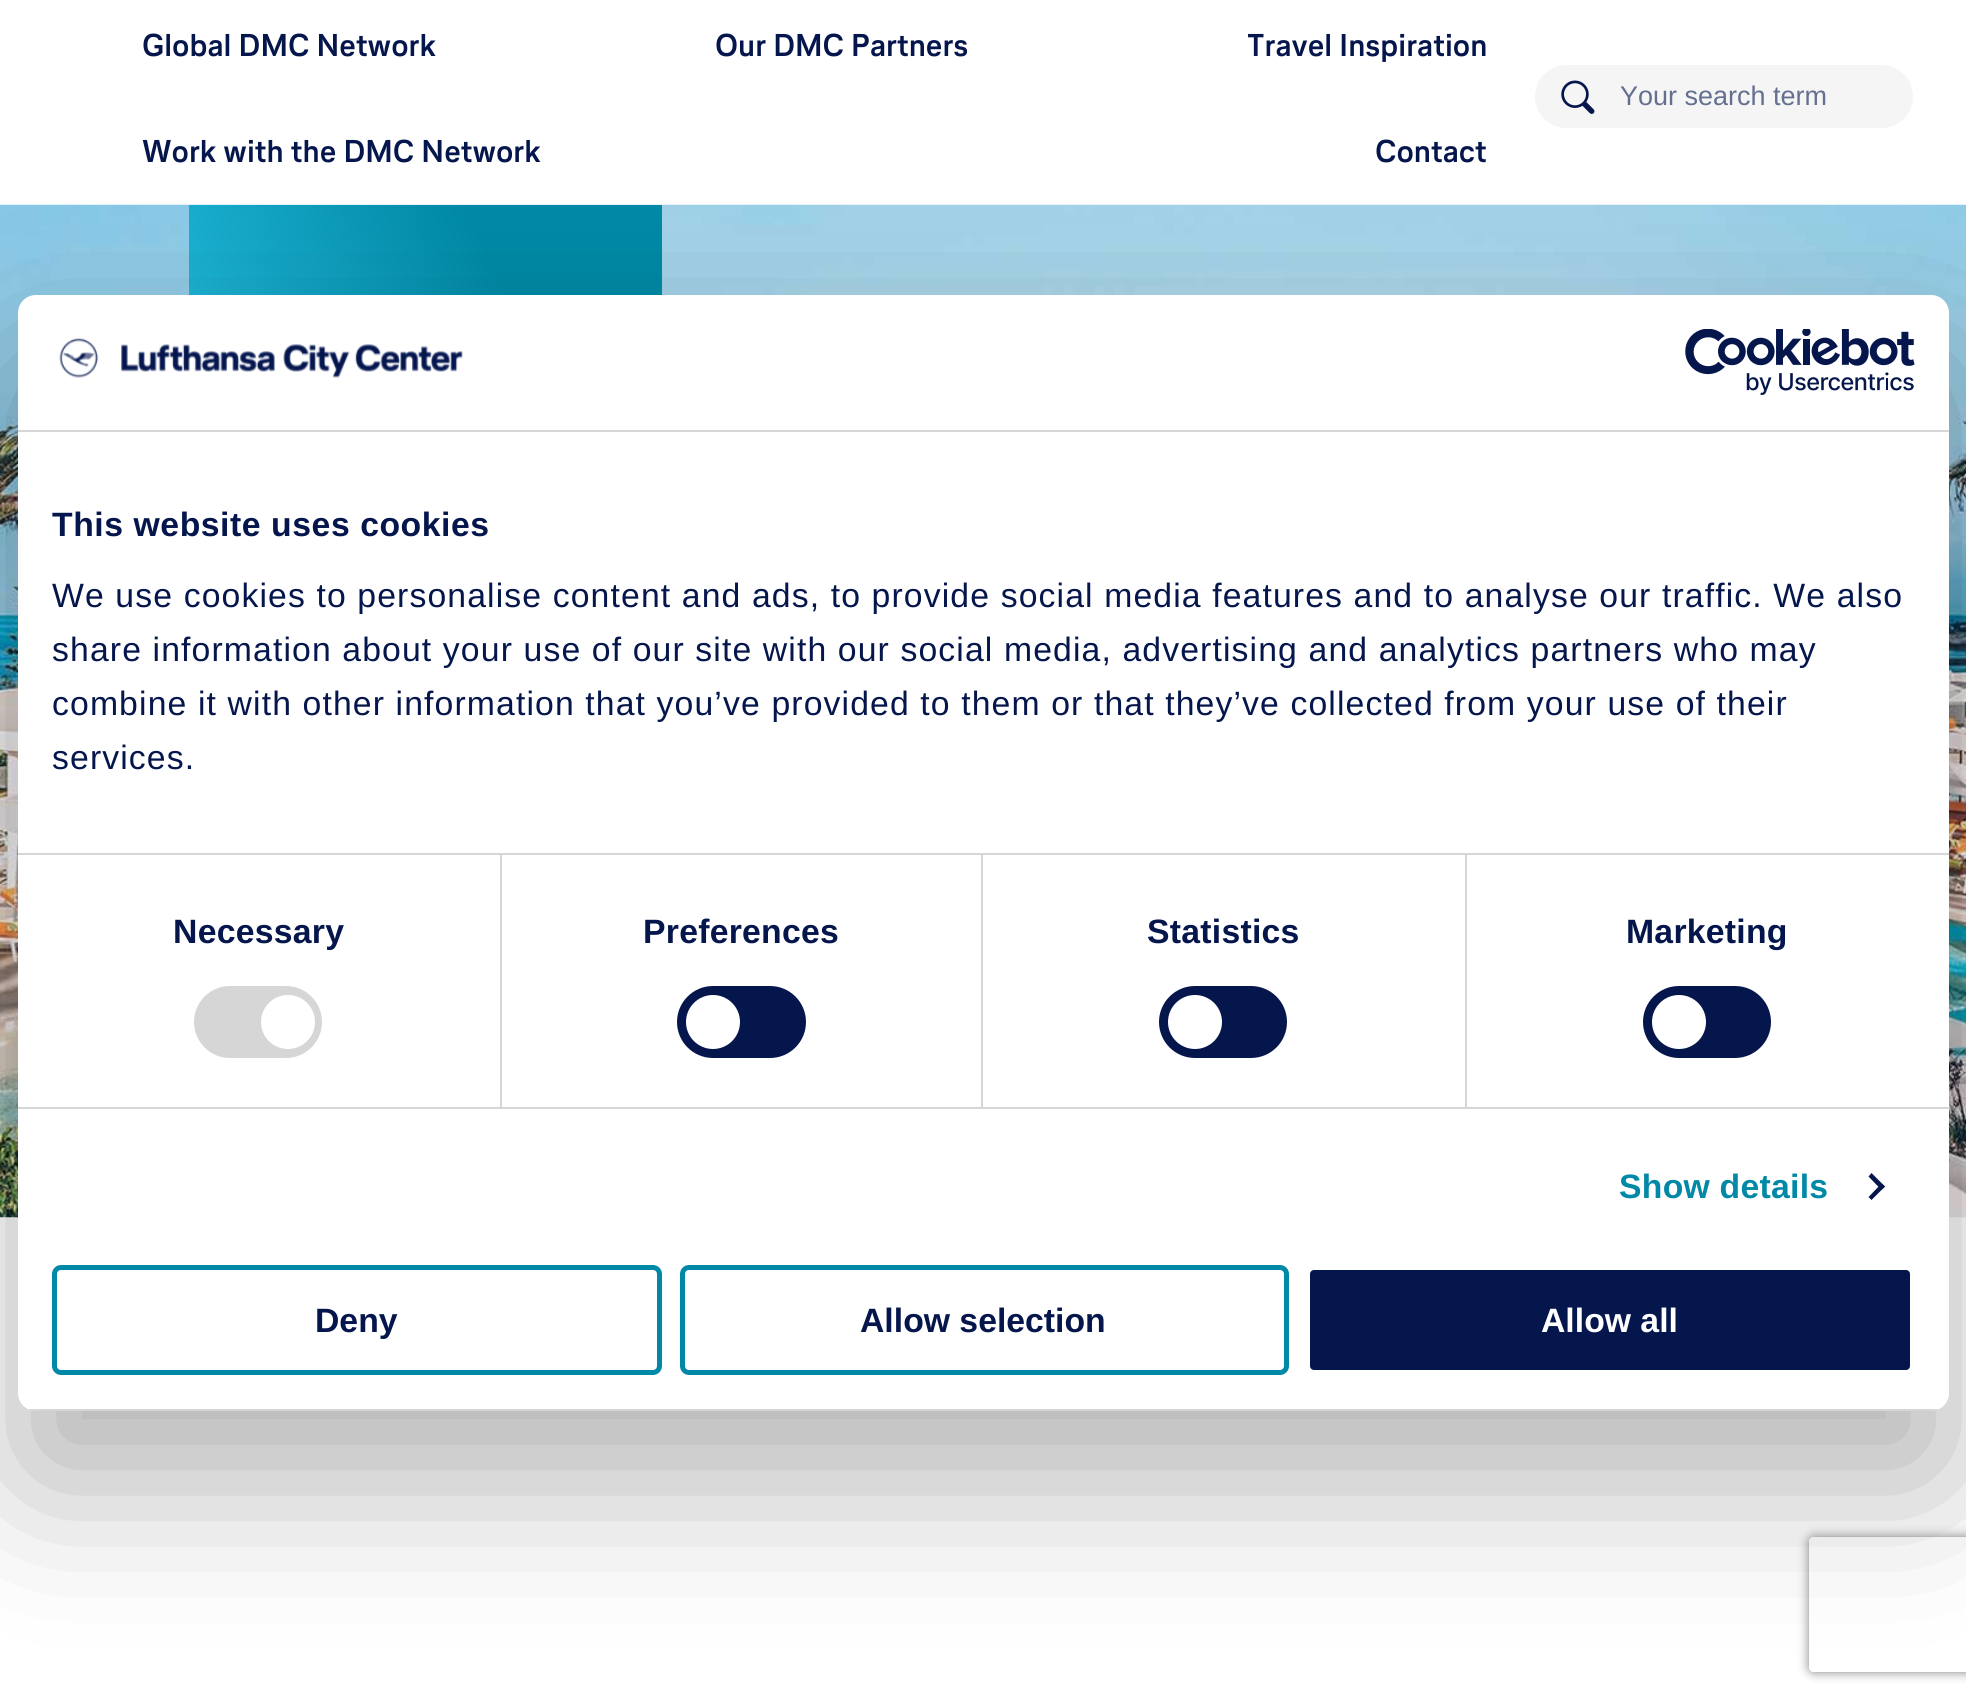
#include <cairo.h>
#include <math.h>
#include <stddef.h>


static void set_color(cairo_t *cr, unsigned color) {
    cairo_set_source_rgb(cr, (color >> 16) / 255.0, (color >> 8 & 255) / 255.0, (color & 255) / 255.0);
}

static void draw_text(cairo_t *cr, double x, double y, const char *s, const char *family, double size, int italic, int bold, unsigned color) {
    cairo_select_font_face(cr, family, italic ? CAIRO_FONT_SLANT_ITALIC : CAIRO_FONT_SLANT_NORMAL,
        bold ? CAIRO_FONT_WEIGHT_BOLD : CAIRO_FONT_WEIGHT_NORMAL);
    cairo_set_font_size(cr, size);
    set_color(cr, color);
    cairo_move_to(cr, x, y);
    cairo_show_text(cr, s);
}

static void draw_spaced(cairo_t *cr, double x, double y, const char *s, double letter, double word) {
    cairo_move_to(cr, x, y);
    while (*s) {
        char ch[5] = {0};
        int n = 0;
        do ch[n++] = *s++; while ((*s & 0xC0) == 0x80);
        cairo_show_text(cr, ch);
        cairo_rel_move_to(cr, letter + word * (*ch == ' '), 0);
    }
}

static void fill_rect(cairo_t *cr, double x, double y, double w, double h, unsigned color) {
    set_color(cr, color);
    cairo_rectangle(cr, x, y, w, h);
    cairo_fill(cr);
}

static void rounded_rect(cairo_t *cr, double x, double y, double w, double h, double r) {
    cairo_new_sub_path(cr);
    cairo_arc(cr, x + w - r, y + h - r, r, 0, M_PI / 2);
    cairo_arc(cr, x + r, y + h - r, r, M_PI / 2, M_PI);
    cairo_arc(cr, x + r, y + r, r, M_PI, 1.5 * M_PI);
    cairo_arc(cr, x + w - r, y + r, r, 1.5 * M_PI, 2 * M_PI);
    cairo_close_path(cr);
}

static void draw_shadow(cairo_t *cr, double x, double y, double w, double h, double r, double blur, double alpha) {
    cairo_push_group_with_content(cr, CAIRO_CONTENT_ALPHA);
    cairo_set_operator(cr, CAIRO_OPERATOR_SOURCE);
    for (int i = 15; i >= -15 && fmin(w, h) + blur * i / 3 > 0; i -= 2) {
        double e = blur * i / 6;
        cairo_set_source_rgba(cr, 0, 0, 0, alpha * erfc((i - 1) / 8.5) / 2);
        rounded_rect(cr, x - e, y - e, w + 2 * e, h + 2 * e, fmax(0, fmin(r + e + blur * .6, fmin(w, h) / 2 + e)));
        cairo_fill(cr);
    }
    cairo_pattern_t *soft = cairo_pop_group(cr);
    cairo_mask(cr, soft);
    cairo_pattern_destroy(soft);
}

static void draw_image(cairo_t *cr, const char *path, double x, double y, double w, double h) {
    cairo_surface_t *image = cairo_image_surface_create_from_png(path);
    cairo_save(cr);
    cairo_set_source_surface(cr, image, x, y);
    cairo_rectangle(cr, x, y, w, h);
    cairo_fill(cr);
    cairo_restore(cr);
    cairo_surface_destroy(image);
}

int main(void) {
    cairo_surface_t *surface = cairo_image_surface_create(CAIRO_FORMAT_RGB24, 1966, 1702);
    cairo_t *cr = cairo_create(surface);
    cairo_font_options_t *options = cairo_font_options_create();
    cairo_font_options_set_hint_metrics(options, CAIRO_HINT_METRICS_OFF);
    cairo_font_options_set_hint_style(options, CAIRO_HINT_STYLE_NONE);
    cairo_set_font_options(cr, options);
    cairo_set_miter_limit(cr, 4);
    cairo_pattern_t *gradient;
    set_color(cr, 0xFFFFFF);
    cairo_paint(cr);
    draw_text(cr, 142, 56, "Global DMC Network", "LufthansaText", 31.5, 0, 1, 0x05164D);
    draw_text(cr, 715, 56, "Our DMC Partners", "LufthansaText", 31.5, 0, 1, 0x05164D);
    draw_text(cr, 1247, 56, "Travel Inspiration", "LufthansaText", 31.5, 0, 1, 0x05164D);
    draw_text(cr, 142, 162, "Work with the DMC Network", "LufthansaText", 31.5, 0, 1, 0x05164D);
    draw_text(cr, 1375, 162, "Contact", "LufthansaText", 31.5, 0, 1, 0x05164D);
    set_color(cr, 0xF5F5F5);
    rounded_rect(cr, 1535, 65, 378, 63, 31.5);
    cairo_fill(cr);
    draw_image(cr, "assets/img1.png", 1561, 80, 34, 34);
    draw_text(cr, 1620, 105, "Your search term", "Liberation Sans", 27, 0, 0, 0x656F90);
    draw_image(cr, "assets/img2.png", 0, 204, 1966, 1014);
    gradient = cairo_pattern_create_linear(690, 263, 160, 522);
    cairo_pattern_add_color_stop_rgba(gradient, 0.3, 0, 0.537, 0.647, 1);
    cairo_pattern_add_color_stop_rgba(gradient, 0.95, 0.149, 0.753, 0.89, 1);
    cairo_set_source(cr, gradient);
    cairo_pattern_destroy(gradient);
    cairo_rectangle(cr, 189, 205, 473, 90);
    cairo_fill(cr);
    set_color(cr, 0x000000);
    draw_shadow(cr, 18, 367, 1931, 1116, 18, 76.5, 0.3);
    set_color(cr, 0xFFFFFF);
    rounded_rect(cr, 18, 295, 1931, 1116, 18);
    cairo_fill(cr);
    fill_rect(cr, 18, 430, 1931, 2, 0xD6D6D6);
    draw_image(cr, "assets/img3.png", 59, 338, 404, 40);
    draw_image(cr, "assets/img4.png", 1685, 329, 230, 66);
    fill_rect(cr, 18, 853, 1931, 2, 0xD6D6D6);
    cairo_select_font_face(cr, "Liberation Sans", CAIRO_FONT_SLANT_NORMAL, CAIRO_FONT_WEIGHT_BOLD);
    cairo_set_font_size(cr, 33.75);
    set_color(cr, 0x05164D);
    draw_spaced(cr, 52, 536, "This website uses cookies", 0.55, 0);
    cairo_select_font_face(cr, "Liberation Sans", CAIRO_FONT_SLANT_NORMAL, CAIRO_FONT_WEIGHT_NORMAL);
    draw_spaced(cr, 52, 607, "We use cookies to personalise content and ads, to provide social media features and to analyse our traffic. We also", 1.12, 0);
    draw_spaced(cr, 52, 661, "share information about your use of our site with our social media, advertising and analytics partners who may", 1.12, 0);
    draw_spaced(cr, 52, 715, "combine it with other information that you’ve provided to them or that they’ve collected from your use of their", 1.12, 0);
    draw_spaced(cr, 52, 769, "services.", 1.12, 0);
    fill_rect(cr, 18, 1107, 1931, 2, 0xD6D6D6);
    fill_rect(cr, 500, 855, 2, 252, 0xD6D6D6);
    cairo_select_font_face(cr, "Liberation Sans", CAIRO_FONT_SLANT_NORMAL, CAIRO_FONT_WEIGHT_BOLD);
    set_color(cr, 0x05164D);
    draw_spaced(cr, 173, 943, "Necessary", 0.25, 0);
    set_color(cr, 0xD6D6D6);
    rounded_rect(cr, 194, 986, 128, 72, 36);
    cairo_fill(cr);
    set_color(cr, 0xFFFFFF);
    cairo_arc(cr, 288, 1022, 27, 0, 2 * M_PI);
    cairo_fill(cr);
    fill_rect(cr, 981, 855, 2, 252, 0xD6D6D6);
    set_color(cr, 0x05164D);
    draw_spaced(cr, 643, 943, "Preferences", 0.25, 0);
    rounded_rect(cr, 677, 986, 129, 72, 36);
    cairo_fill(cr);
    set_color(cr, 0xFFFFFF);
    cairo_arc(cr, 713, 1022, 27, 0, 2 * M_PI);
    cairo_fill(cr);
    fill_rect(cr, 1465, 855, 2, 252, 0xD6D6D6);
    set_color(cr, 0x05164D);
    draw_spaced(cr, 1147, 943, "Statistics", 0.25, 0);
    rounded_rect(cr, 1159, 986, 128, 72, 36);
    cairo_fill(cr);
    set_color(cr, 0xFFFFFF);
    cairo_arc(cr, 1195, 1022, 27, 0, 2 * M_PI);
    cairo_fill(cr);
    set_color(cr, 0x05164D);
    draw_spaced(cr, 1626, 943, "Marketing", 0.25, 0);
    rounded_rect(cr, 1643, 986, 128, 72, 36);
    cairo_fill(cr);
    set_color(cr, 0xFFFFFF);
    cairo_arc(cr, 1679, 1022, 27, 0, 2 * M_PI);
    cairo_fill(cr);
    set_color(cr, 0x0089A7);
    draw_spaced(cr, 1619, 1198, "Show details", 0.25, 0);
    set_color(cr, 0x05164D);
    cairo_new_path(cr);
    cairo_move_to(cr, 1871.5, 1173);
    cairo_line_to(cr, 1885, 1186.5);
    cairo_line_to(cr, 1881.5, 1190);
    cairo_line_to(cr, 1868.5, 1176.5);
    cairo_close_path(cr);
    cairo_fill(cr);
    cairo_new_path(cr);
    cairo_move_to(cr, 1881.5, 1183.5);
    cairo_line_to(cr, 1885, 1186.5);
    cairo_line_to(cr, 1871.5, 1200);
    cairo_line_to(cr, 1868.5, 1197);
    cairo_close_path(cr);
    cairo_fill(cr);
    cairo_save(cr);
    rounded_rect(cr, 18, 295, 1931, 1116, 18);
    cairo_clip(cr);
    fill_rect(cr, 28, 1409, 1911, 2, 0xD6D6D6);
    cairo_restore(cr);
    rounded_rect(cr, 54.5, 1267.5, 605, 105, 6.5);
    set_color(cr, 0x0089A7);
    cairo_set_line_width(cr, 5);
    cairo_stroke(cr);
    draw_text(cr, 315, 1332, "Deny", "Liberation Sans", 33.75, 0, 1, 0x05164D);
    rounded_rect(cr, 682.5, 1267.5, 604, 105, 6.5);
    set_color(cr, 0x0089A7);
    cairo_stroke(cr);
    draw_text(cr, 860, 1332, "Allow selection", "Liberation Sans", 33.75, 0, 1, 0x05164D);
    rounded_rect(cr, 1307.5, 1267.5, 605, 105, 6.5);
    cairo_fill_preserve(cr);
    set_color(cr, 0xFFFFFF);
    cairo_stroke(cr);
    draw_text(cr, 1541, 1332, "Allow all", "Liberation Sans", 33.75, 0, 1, 0xFFFFFF);
    cairo_save(cr);
    cairo_set_fill_rule(cr, CAIRO_FILL_RULE_EVEN_ODD);
    cairo_new_path(cr);
    cairo_move_to(cr, 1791, 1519);
    cairo_line_to(cr, 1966, 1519);
    cairo_line_to(cr, 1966, 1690);
    cairo_line_to(cr, 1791, 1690);
    cairo_close_path(cr);
    cairo_move_to(cr, 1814, 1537);
    cairo_line_to(cr, 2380, 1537);
    cairo_curve_to(cr, 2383, 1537, 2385, 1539, 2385, 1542);
    cairo_line_to(cr, 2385, 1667);
    cairo_curve_to(cr, 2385, 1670, 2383, 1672, 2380, 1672);
    cairo_line_to(cr, 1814, 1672);
    cairo_curve_to(cr, 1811, 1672, 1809, 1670, 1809, 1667);
    cairo_line_to(cr, 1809, 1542);
    cairo_curve_to(cr, 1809, 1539, 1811, 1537, 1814, 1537);
    cairo_close_path(cr);
    cairo_clip(cr);
    set_color(cr, 0x808080);
    draw_shadow(cr, 1809, 1537, 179, 135, 5, 5.5, 1);
    cairo_restore(cr);
    cairo_surface_write_to_png(surface, "output.png");
    cairo_font_options_destroy(options);
    cairo_destroy(cr);
    cairo_surface_destroy(surface);
    return 0;
}
